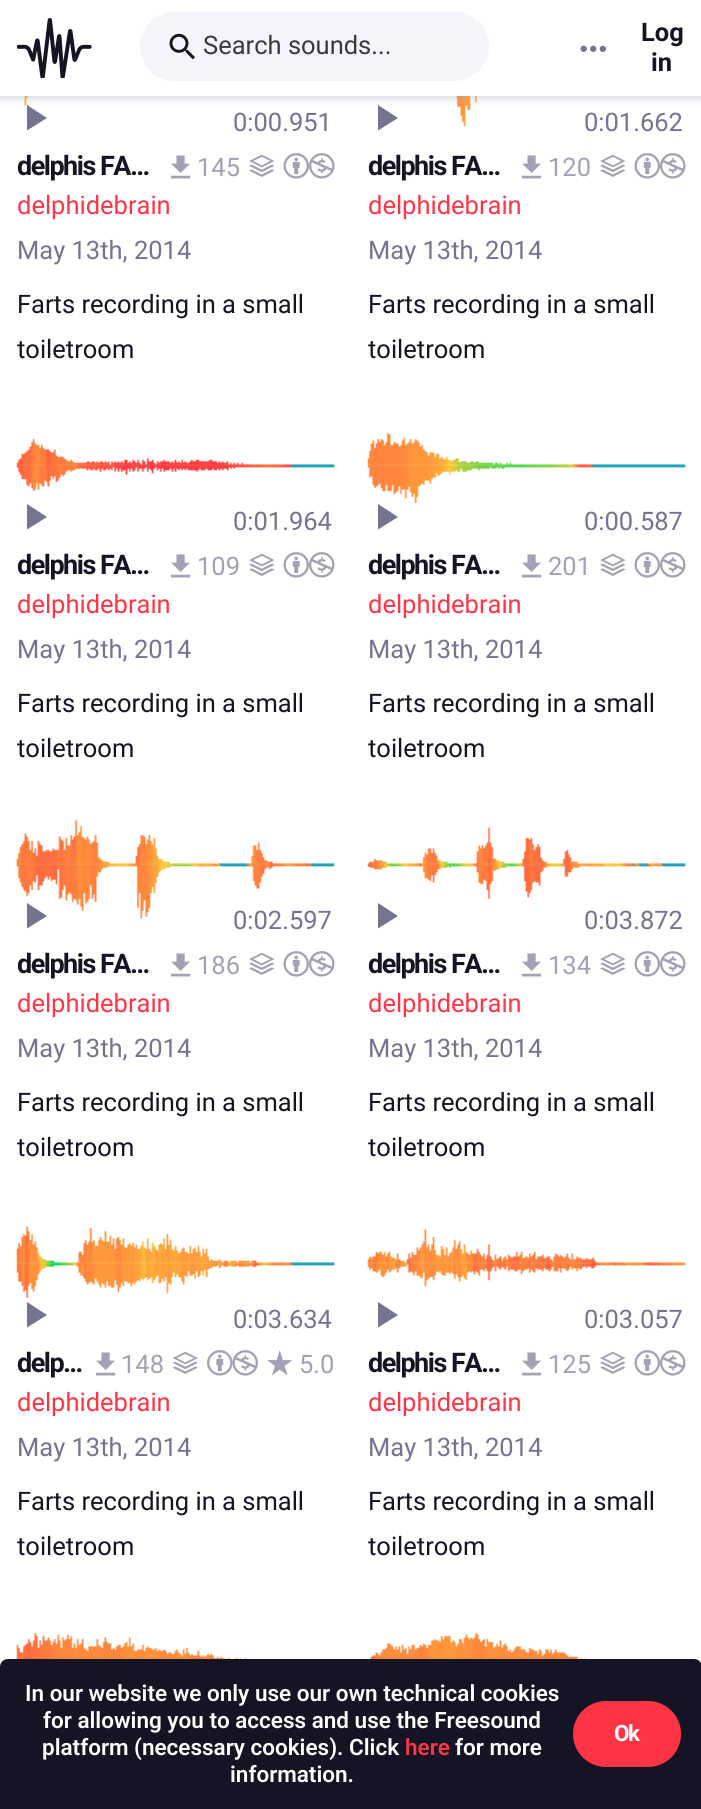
#include <cairo.h>
#include <math.h>
#include <stddef.h>


static void set_color(cairo_t *cr, unsigned color) {
    cairo_set_source_rgb(cr, (color >> 16) / 255.0, (color >> 8 & 255) / 255.0, (color & 255) / 255.0);
}

static void draw_text(cairo_t *cr, double x, double y, const char *s, const char *family, double size, int italic, int bold, unsigned color) {
    cairo_select_font_face(cr, family, italic ? CAIRO_FONT_SLANT_ITALIC : CAIRO_FONT_SLANT_NORMAL,
        bold ? CAIRO_FONT_WEIGHT_BOLD : CAIRO_FONT_WEIGHT_NORMAL);
    cairo_set_font_size(cr, size);
    set_color(cr, color);
    cairo_move_to(cr, x, y);
    cairo_show_text(cr, s);
}

static void draw_spaced(cairo_t *cr, double x, double y, const char *s, double letter, double word) {
    cairo_move_to(cr, x, y);
    while (*s) {
        char ch[5] = {0};
        int n = 0;
        do ch[n++] = *s++; while ((*s & 0xC0) == 0x80);
        cairo_show_text(cr, ch);
        cairo_rel_move_to(cr, letter + word * (*ch == ' '), 0);
    }
}

static void fill_rect(cairo_t *cr, double x, double y, double w, double h, unsigned color) {
    set_color(cr, color);
    cairo_rectangle(cr, x, y, w, h);
    cairo_fill(cr);
}

static void rounded_rect(cairo_t *cr, double x, double y, double w, double h, double r) {
    cairo_new_sub_path(cr);
    cairo_arc(cr, x + w - r, y + h - r, r, 0, M_PI / 2);
    cairo_arc(cr, x + r, y + h - r, r, M_PI / 2, M_PI);
    cairo_arc(cr, x + r, y + r, r, M_PI, 1.5 * M_PI);
    cairo_arc(cr, x + w - r, y + r, r, 1.5 * M_PI, 2 * M_PI);
    cairo_close_path(cr);
}

static void draw_shadow(cairo_t *cr, double x, double y, double w, double h, double r, double blur, double alpha) {
    cairo_push_group_with_content(cr, CAIRO_CONTENT_ALPHA);
    cairo_set_operator(cr, CAIRO_OPERATOR_SOURCE);
    for (int i = 15; i >= -15 && fmin(w, h) + blur * i / 3 > 0; i -= 2) {
        double e = blur * i / 6;
        cairo_set_source_rgba(cr, 0, 0, 0, alpha * erfc((i - 1) / 8.5) / 2);
        rounded_rect(cr, x - e, y - e, w + 2 * e, h + 2 * e, fmax(0, fmin(r + e + blur * .6, fmin(w, h) / 2 + e)));
        cairo_fill(cr);
    }
    cairo_pattern_t *soft = cairo_pop_group(cr);
    cairo_mask(cr, soft);
    cairo_pattern_destroy(soft);
}

static void draw_image(cairo_t *cr, const char *path, double x, double y, double w, double h) {
    cairo_surface_t *image = cairo_image_surface_create_from_png(path);
    cairo_save(cr);
    cairo_set_source_surface(cr, image, x, y);
    cairo_rectangle(cr, x, y, w, h);
    cairo_fill(cr);
    cairo_restore(cr);
    cairo_surface_destroy(image);
}

int main(void) {
    cairo_surface_t *surface = cairo_image_surface_create(CAIRO_FORMAT_RGB24, 701, 1809);
    cairo_t *cr = cairo_create(surface);
    cairo_font_options_t *options = cairo_font_options_create();
    cairo_font_options_set_hint_metrics(options, CAIRO_HINT_METRICS_OFF);
    cairo_font_options_set_hint_style(options, CAIRO_HINT_STYLE_NONE);
    cairo_set_font_options(cr, options);
    cairo_set_miter_limit(cr, 4);
    set_color(cr, 0xFFFFFF);
    cairo_paint(cr);
    draw_image(cr, "assets/img4.png", 24, 96, 5, 10);
    set_color(cr, 0x747490);
    cairo_new_path(cr);
    cairo_move_to(cr, 27, 105);
    cairo_line_to(cr, 27, 130.5);
    cairo_line_to(cr, 47, 118);
    cairo_close_path(cr);
    cairo_fill(cr);
    cairo_new_path(cr);
    cairo_move_to(cr, 378, 105);
    cairo_line_to(cr, 378, 130.5);
    cairo_line_to(cr, 398, 118);
    cairo_close_path(cr);
    cairo_fill(cr);
    draw_image(cr, "assets/img8.png", 455, 96, 23, 31);
    set_color(cr, 0xA2A2B4);
    draw_shadow(cr, 0, 3, 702, 96, 0, 4, 0.4);
    fill_rect(cr, 0, 0, 701, 96, 0xFFFFFF);
    draw_image(cr, "assets/img1.png", 17, 18, 75, 60);
    set_color(cr, 0xF4F4FA);
    rounded_rect(cr, 140, 12, 349, 69, 34.5);
    cairo_fill(cr);
    draw_image(cr, "assets/img2.png", 169, 33, 26, 27);
    draw_text(cr, 203, 54, "Search sounds...", "Roboto", 25.5, 0, 0, 0x393947);
    draw_image(cr, "assets/img3.png", 580, 45, 26, 7);
    draw_text(cr, 641, 41, "Log", "Roboto", 25.5, 0, 1, 0x141424);
    draw_text(cr, 651, 71, "in", "Roboto", 25.5, 0, 1, 0x141424);
    draw_text(cr, 233, 131, "0:00.951", "Roboto", 25.5, 0, 0, 0x747490);
    cairo_select_font_face(cr, "Roboto", CAIRO_FONT_SLANT_NORMAL, CAIRO_FONT_WEIGHT_BOLD);
    cairo_set_font_size(cr, 27);
    set_color(cr, 0x141424);
    draw_spaced(cr, 17, 175, "delphis FA…", -1.5, 0);
    draw_image(cr, "assets/img5.png", 171, 155, 20, 24);
    draw_text(cr, 197, 176, "145", "Roboto", 25.5, 0, 0, 0xA2A2B4);
    draw_image(cr, "assets/img6.png", 249, 154, 26, 23);
    draw_image(cr, "assets/img7.png", 283, 153, 52, 26);
    draw_text(cr, 17, 214, "delphidebrain", "Roboto", 25.5, 0, 0, 0xFF3546);
    draw_text(cr, 17, 259, "May 13th, 2014", "Roboto", 25.5, 0, 0, 0x747490);
    draw_text(cr, 17, 313, "Farts recording in a small", "Roboto", 25.5, 0, 0, 0x141424);
    cairo_save(cr);
    cairo_rectangle(cr, 17, 282, 318, 81);
    cairo_clip(cr);
    draw_text(cr, 17, 358, "toiletroom", "Roboto", 25.5, 0, 0, 0x141424);
    cairo_restore(cr);
    draw_text(cr, 584, 131, "0:01.662", "Roboto", 25.5, 0, 0, 0x747490);
    cairo_select_font_face(cr, "Roboto", CAIRO_FONT_SLANT_NORMAL, CAIRO_FONT_WEIGHT_BOLD);
    cairo_set_font_size(cr, 27);
    set_color(cr, 0x141424);
    draw_spaced(cr, 368, 175, "delphis FA…", -1.5, 0);
    draw_image(cr, "assets/img5.png", 522, 155, 20, 24);
    draw_text(cr, 548, 176, "120", "Roboto", 25.5, 0, 0, 0xA2A2B4);
    draw_image(cr, "assets/img6.png", 600, 154, 26, 23);
    draw_image(cr, "assets/img7.png", 634, 153, 52, 26);
    draw_text(cr, 368, 214, "delphidebrain", "Roboto", 25.5, 0, 0, 0xFF3546);
    draw_text(cr, 368, 259, "May 13th, 2014", "Roboto", 25.5, 0, 0, 0x747490);
    draw_text(cr, 368, 313, "Farts recording in a small", "Roboto", 25.5, 0, 0, 0x141424);
    cairo_save(cr);
    cairo_rectangle(cr, 368, 282, 318, 81);
    cairo_clip(cr);
    draw_text(cr, 368, 358, "toiletroom", "Roboto", 25.5, 0, 0, 0x141424);
    cairo_restore(cr);
    draw_image(cr, "assets/img9.png", 16, 438, 319, 54);
    set_color(cr, 0x747490);
    cairo_new_path(cr);
    cairo_move_to(cr, 27, 504);
    cairo_line_to(cr, 27, 529.5);
    cairo_line_to(cr, 47, 517);
    cairo_close_path(cr);
    cairo_fill(cr);
    draw_text(cr, 233, 530, "0:01.964", "Roboto", 25.5, 0, 0, 0x747490);
    cairo_select_font_face(cr, "Roboto", CAIRO_FONT_SLANT_NORMAL, CAIRO_FONT_WEIGHT_BOLD);
    cairo_set_font_size(cr, 27);
    set_color(cr, 0x141424);
    draw_spaced(cr, 17, 574, "delphis FA…", -1.5, 0);
    draw_image(cr, "assets/img5.png", 171, 554, 20, 24);
    draw_text(cr, 197, 575, "109", "Roboto", 25.5, 0, 0, 0xA2A2B4);
    draw_image(cr, "assets/img6.png", 249, 553, 26, 23);
    draw_image(cr, "assets/img7.png", 283, 552, 52, 26);
    draw_text(cr, 17, 613, "delphidebrain", "Roboto", 25.5, 0, 0, 0xFF3546);
    draw_text(cr, 17, 658, "May 13th, 2014", "Roboto", 25.5, 0, 0, 0x747490);
    draw_text(cr, 17, 712, "Farts recording in a small", "Roboto", 25.5, 0, 0, 0x141424);
    cairo_save(cr);
    cairo_rectangle(cr, 17, 681, 318, 81);
    cairo_clip(cr);
    draw_text(cr, 17, 757, "toiletroom", "Roboto", 25.5, 0, 0, 0x141424);
    cairo_restore(cr);
    draw_image(cr, "assets/img10.png", 367, 432, 319, 72);
    set_color(cr, 0x747490);
    cairo_new_path(cr);
    cairo_move_to(cr, 378, 504);
    cairo_line_to(cr, 378, 529.5);
    cairo_line_to(cr, 398, 517);
    cairo_close_path(cr);
    cairo_fill(cr);
    draw_text(cr, 584, 530, "0:00.587", "Roboto", 25.5, 0, 0, 0x747490);
    cairo_select_font_face(cr, "Roboto", CAIRO_FONT_SLANT_NORMAL, CAIRO_FONT_WEIGHT_BOLD);
    cairo_set_font_size(cr, 27);
    set_color(cr, 0x141424);
    draw_spaced(cr, 368, 574, "delphis FA…", -1.5, 0);
    draw_image(cr, "assets/img5.png", 522, 554, 20, 24);
    draw_text(cr, 548, 575, "201", "Roboto", 25.5, 0, 0, 0xA2A2B4);
    draw_image(cr, "assets/img6.png", 600, 553, 26, 23);
    draw_image(cr, "assets/img7.png", 634, 552, 52, 26);
    draw_text(cr, 368, 613, "delphidebrain", "Roboto", 25.5, 0, 0, 0xFF3546);
    draw_text(cr, 368, 658, "May 13th, 2014", "Roboto", 25.5, 0, 0, 0x747490);
    draw_text(cr, 368, 712, "Farts recording in a small", "Roboto", 25.5, 0, 0, 0x141424);
    cairo_save(cr);
    cairo_rectangle(cr, 368, 681, 318, 81);
    cairo_clip(cr);
    draw_text(cr, 368, 757, "toiletroom", "Roboto", 25.5, 0, 0, 0x141424);
    cairo_restore(cr);
    draw_image(cr, "assets/img11.png", 16, 820, 319, 99);
    set_color(cr, 0x747490);
    cairo_new_path(cr);
    cairo_move_to(cr, 27, 903);
    cairo_line_to(cr, 27, 928.5);
    cairo_line_to(cr, 47, 916);
    cairo_close_path(cr);
    cairo_fill(cr);
    draw_text(cr, 233, 929, "0:02.597", "Roboto", 25.5, 0, 0, 0x747490);
    cairo_select_font_face(cr, "Roboto", CAIRO_FONT_SLANT_NORMAL, CAIRO_FONT_WEIGHT_BOLD);
    cairo_set_font_size(cr, 27);
    set_color(cr, 0x141424);
    draw_spaced(cr, 17, 973, "delphis FA…", -1.5, 0);
    draw_image(cr, "assets/img5.png", 171, 953, 20, 24);
    draw_text(cr, 197, 974, "186", "Roboto", 25.5, 0, 0, 0xA2A2B4);
    draw_image(cr, "assets/img6.png", 249, 952, 26, 23);
    draw_image(cr, "assets/img7.png", 283, 951, 52, 26);
    draw_text(cr, 17, 1012, "delphidebrain", "Roboto", 25.5, 0, 0, 0xFF3546);
    draw_text(cr, 17, 1057, "May 13th, 2014", "Roboto", 25.5, 0, 0, 0x747490);
    draw_text(cr, 17, 1111, "Farts recording in a small", "Roboto", 25.5, 0, 0, 0x141424);
    cairo_save(cr);
    cairo_rectangle(cr, 17, 1080, 318, 81);
    cairo_clip(cr);
    draw_text(cr, 17, 1156, "toiletroom", "Roboto", 25.5, 0, 0, 0x141424);
    cairo_restore(cr);
    draw_image(cr, "assets/img12.png", 367, 827, 319, 73);
    set_color(cr, 0x747490);
    cairo_new_path(cr);
    cairo_move_to(cr, 378, 903);
    cairo_line_to(cr, 378, 928.5);
    cairo_line_to(cr, 398, 916);
    cairo_close_path(cr);
    cairo_fill(cr);
    draw_text(cr, 584, 929, "0:03.872", "Roboto", 25.5, 0, 0, 0x747490);
    cairo_select_font_face(cr, "Roboto", CAIRO_FONT_SLANT_NORMAL, CAIRO_FONT_WEIGHT_BOLD);
    cairo_set_font_size(cr, 27);
    set_color(cr, 0x141424);
    draw_spaced(cr, 368, 973, "delphis FA…", -1.5, 0);
    draw_image(cr, "assets/img5.png", 522, 953, 20, 24);
    draw_text(cr, 548, 974, "134", "Roboto", 25.5, 0, 0, 0xA2A2B4);
    draw_image(cr, "assets/img6.png", 600, 952, 26, 23);
    draw_image(cr, "assets/img7.png", 634, 951, 52, 26);
    draw_text(cr, 368, 1012, "delphidebrain", "Roboto", 25.5, 0, 0, 0xFF3546);
    draw_text(cr, 368, 1057, "May 13th, 2014", "Roboto", 25.5, 0, 0, 0x747490);
    draw_text(cr, 368, 1111, "Farts recording in a small", "Roboto", 25.5, 0, 0, 0x141424);
    cairo_save(cr);
    cairo_rectangle(cr, 368, 1080, 318, 81);
    cairo_clip(cr);
    draw_text(cr, 368, 1156, "toiletroom", "Roboto", 25.5, 0, 0, 0x141424);
    cairo_restore(cr);
    draw_image(cr, "assets/img13.png", 16, 1226, 319, 73);
    set_color(cr, 0x747490);
    cairo_new_path(cr);
    cairo_move_to(cr, 27, 1302);
    cairo_line_to(cr, 27, 1327.5);
    cairo_line_to(cr, 47, 1315);
    cairo_close_path(cr);
    cairo_fill(cr);
    draw_text(cr, 233, 1328, "0:03.634", "Roboto", 25.5, 0, 0, 0x747490);
    cairo_select_font_face(cr, "Roboto", CAIRO_FONT_SLANT_NORMAL, CAIRO_FONT_WEIGHT_BOLD);
    cairo_set_font_size(cr, 27);
    set_color(cr, 0x141424);
    draw_spaced(cr, 17, 1372, "delp…", -1.5, 0);
    draw_image(cr, "assets/img5.png", 96, 1352, 20, 24);
    draw_text(cr, 121, 1373, "148", "Roboto", 25.5, 0, 0, 0xA2A2B4);
    draw_image(cr, "assets/img14.png", 172, 1351, 26, 23);
    draw_image(cr, "assets/img15.png", 207, 1350, 51, 26);
    draw_image(cr, "assets/img16.png", 267, 1350, 26, 26);
    draw_text(cr, 299, 1373, "5.0", "Roboto", 25.5, 0, 0, 0xA2A2B4);
    draw_text(cr, 17, 1411, "delphidebrain", "Roboto", 25.5, 0, 0, 0xFF3546);
    draw_text(cr, 17, 1456, "May 13th, 2014", "Roboto", 25.5, 0, 0, 0x747490);
    draw_text(cr, 17, 1510, "Farts recording in a small", "Roboto", 25.5, 0, 0, 0x141424);
    cairo_save(cr);
    cairo_rectangle(cr, 17, 1479, 318, 81);
    cairo_clip(cr);
    draw_text(cr, 17, 1555, "toiletroom", "Roboto", 25.5, 0, 0, 0x141424);
    cairo_restore(cr);
    draw_image(cr, "assets/img17.png", 367, 1229, 319, 58);
    set_color(cr, 0x747490);
    cairo_new_path(cr);
    cairo_move_to(cr, 378, 1302);
    cairo_line_to(cr, 378, 1327.5);
    cairo_line_to(cr, 398, 1315);
    cairo_close_path(cr);
    cairo_fill(cr);
    draw_text(cr, 584, 1328, "0:03.057", "Roboto", 25.5, 0, 0, 0x747490);
    cairo_select_font_face(cr, "Roboto", CAIRO_FONT_SLANT_NORMAL, CAIRO_FONT_WEIGHT_BOLD);
    cairo_set_font_size(cr, 27);
    set_color(cr, 0x141424);
    draw_spaced(cr, 368, 1372, "delphis FA…", -1.5, 0);
    draw_image(cr, "assets/img5.png", 522, 1352, 20, 24);
    draw_text(cr, 548, 1373, "125", "Roboto", 25.5, 0, 0, 0xA2A2B4);
    draw_image(cr, "assets/img6.png", 600, 1351, 26, 23);
    draw_image(cr, "assets/img7.png", 634, 1350, 52, 26);
    draw_text(cr, 368, 1411, "delphidebrain", "Roboto", 25.5, 0, 0, 0xFF3546);
    draw_text(cr, 368, 1456, "May 13th, 2014", "Roboto", 25.5, 0, 0, 0x747490);
    draw_text(cr, 368, 1510, "Farts recording in a small", "Roboto", 25.5, 0, 0, 0x141424);
    cairo_save(cr);
    cairo_rectangle(cr, 368, 1479, 318, 81);
    cairo_clip(cr);
    draw_text(cr, 368, 1555, "toiletroom", "Roboto", 25.5, 0, 0, 0x141424);
    cairo_restore(cr);
    draw_image(cr, "assets/img18.png", 16, 1632, 231, 27);
    draw_image(cr, "assets/img19.png", 370, 1632, 217, 27);
    cairo_new_path(cr);
    cairo_move_to(cr, 8, 1659);
    cairo_line_to(cr, 694, 1659);
    cairo_curve_to(cr, 698.5, 1659, 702, 1662.5, 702, 1667);
    cairo_line_to(cr, 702, 1809);
    cairo_line_to(cr, 0, 1809);
    cairo_line_to(cr, 0, 1667);
    cairo_curve_to(cr, 0, 1662.5, 3.5, 1659, 8, 1659);
    cairo_close_path(cr);
    cairo_fill(cr);
    draw_text(cr, 25, 1701, "In our website we only use our own technical cookies", "Roboto SemiBold", 22.5, 0, 0, 0xFFFFFF);
    draw_text(cr, 43, 1728, "for allowing you to access and use the Freesound", "Roboto SemiBold", 22.5, 0, 0, 0xFFFFFF);
    draw_text(cr, 42, 1755, "platform (necessary cookies). Click", "Roboto SemiBold", 22.5, 0, 0, 0xFFFFFF);
    draw_text(cr, 405, 1755, "here", "Roboto SemiBold", 22.5, 0, 0, 0xFF3546);
    draw_text(cr, 455, 1755, "for more", "Roboto SemiBold", 22.5, 0, 0, 0xFFFFFF);
    draw_text(cr, 230, 1782, "information.", "Roboto SemiBold", 22.5, 0, 0, 0xFFFFFF);
    set_color(cr, 0xFF3546);
    rounded_rect(cr, 573, 1701, 108, 66, 33);
    cairo_fill(cr);
    cairo_select_font_face(cr, "Roboto", CAIRO_FONT_SLANT_NORMAL, CAIRO_FONT_WEIGHT_BOLD);
    set_color(cr, 0xFFFFFF);
    draw_spaced(cr, 614, 1741, "Ok", -1.5, 0);
    cairo_surface_write_to_png(surface, "output.png");
    cairo_font_options_destroy(options);
    cairo_destroy(cr);
    cairo_surface_destroy(surface);
    return 0;
}
